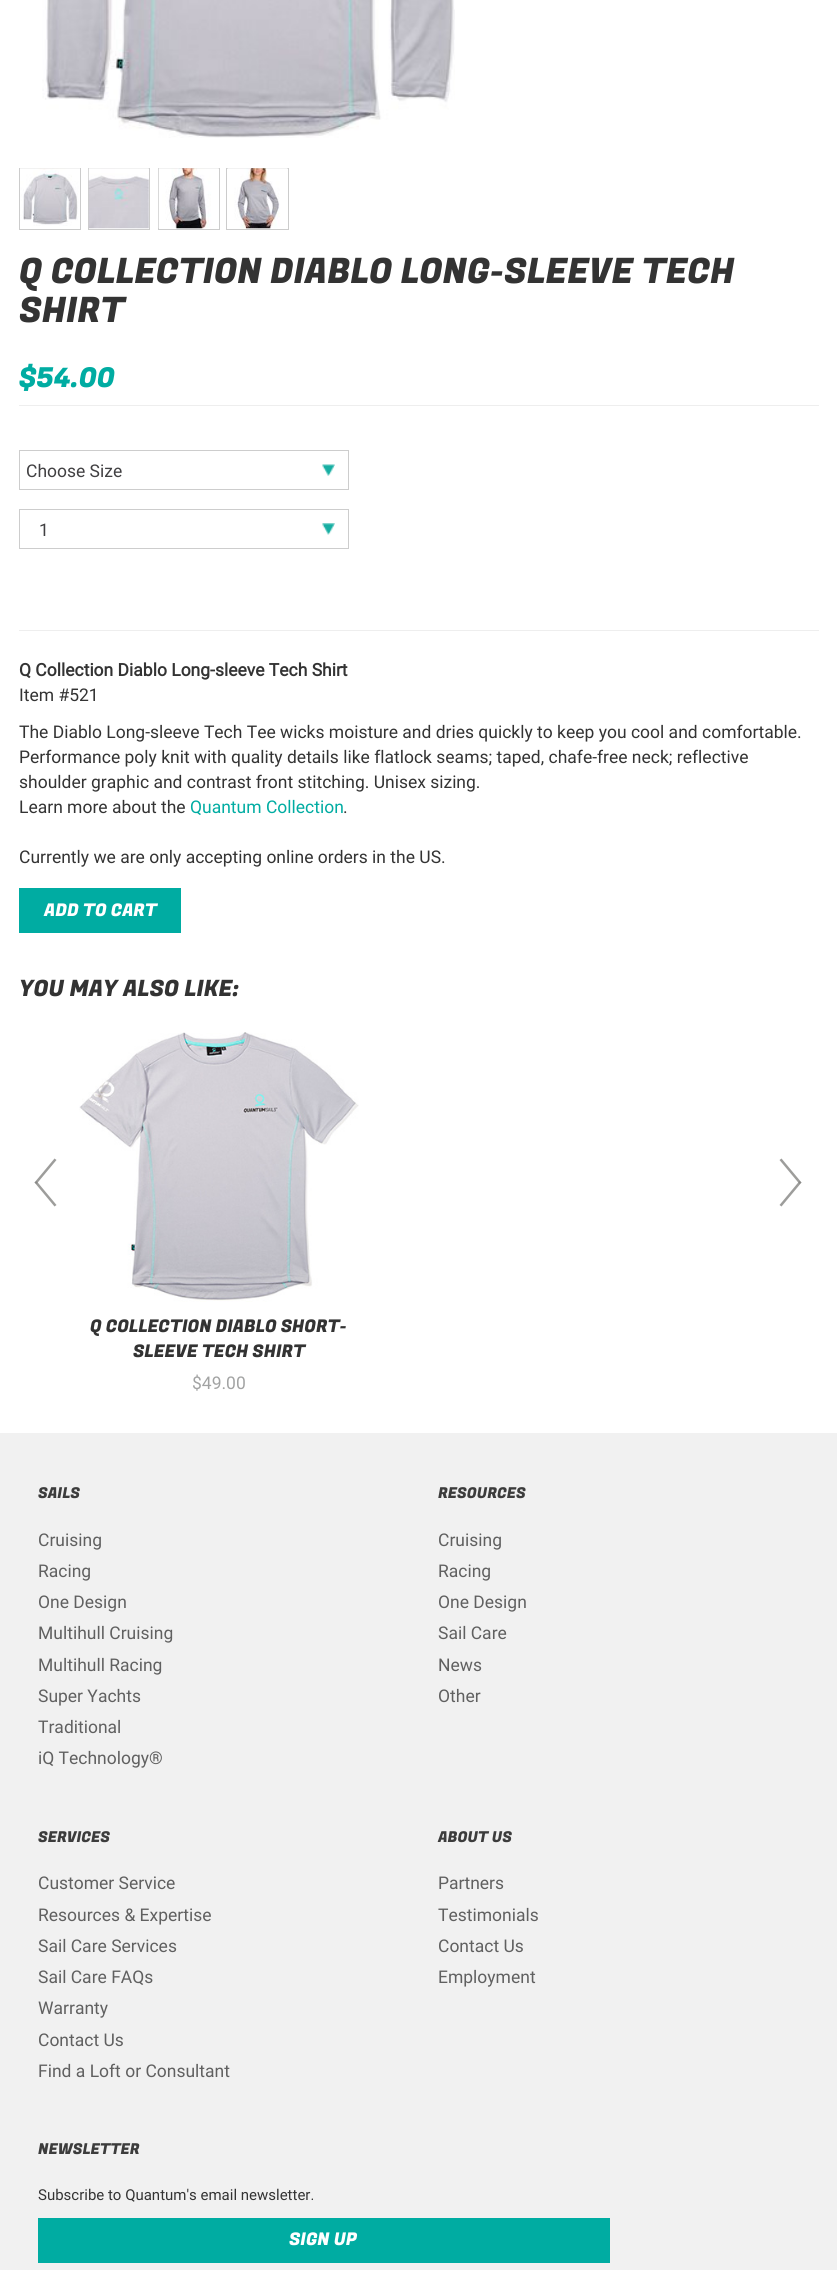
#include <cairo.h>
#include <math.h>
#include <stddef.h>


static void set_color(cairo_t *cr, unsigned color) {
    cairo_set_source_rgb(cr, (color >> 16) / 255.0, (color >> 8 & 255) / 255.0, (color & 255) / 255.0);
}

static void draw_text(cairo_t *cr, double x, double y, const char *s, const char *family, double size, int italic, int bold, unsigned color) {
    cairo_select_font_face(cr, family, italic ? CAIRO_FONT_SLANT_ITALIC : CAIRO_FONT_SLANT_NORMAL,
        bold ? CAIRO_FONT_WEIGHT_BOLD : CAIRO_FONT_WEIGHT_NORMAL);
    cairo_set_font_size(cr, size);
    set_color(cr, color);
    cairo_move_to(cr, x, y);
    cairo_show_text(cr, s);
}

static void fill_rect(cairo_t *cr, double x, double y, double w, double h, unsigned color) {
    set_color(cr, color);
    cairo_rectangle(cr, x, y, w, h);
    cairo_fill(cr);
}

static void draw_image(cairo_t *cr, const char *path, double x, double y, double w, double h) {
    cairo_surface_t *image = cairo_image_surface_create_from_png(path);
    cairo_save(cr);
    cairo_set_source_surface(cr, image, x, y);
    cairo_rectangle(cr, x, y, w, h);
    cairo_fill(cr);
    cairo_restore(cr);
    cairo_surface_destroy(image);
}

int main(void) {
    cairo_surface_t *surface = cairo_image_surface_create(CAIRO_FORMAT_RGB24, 837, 2270);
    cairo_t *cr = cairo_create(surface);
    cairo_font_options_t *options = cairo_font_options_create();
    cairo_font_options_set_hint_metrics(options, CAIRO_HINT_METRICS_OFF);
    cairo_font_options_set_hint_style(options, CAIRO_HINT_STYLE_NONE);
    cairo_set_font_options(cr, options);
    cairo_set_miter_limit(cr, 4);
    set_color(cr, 0xFFFFFF);
    cairo_paint(cr);
    draw_image(cr, "assets/img1.png", 42, 0, 413, 138);
    cairo_rectangle(cr, 19.5, 168.5, 61, 61);
    set_color(cr, 0xCCCCCC);
    cairo_set_line_width(cr, 1);
    cairo_stroke(cr);
    draw_image(cr, "assets/img2.png", 20, 168, 60, 58);
    cairo_rectangle(cr, 88.5, 168.5, 61, 61);
    cairo_stroke(cr);
    draw_image(cr, "assets/img3.png", 88, 168, 61, 61);
    cairo_rectangle(cr, 158.5, 168.5, 61, 61);
    cairo_stroke(cr);
    draw_image(cr, "assets/img4.png", 158, 168, 61, 61);
    cairo_rectangle(cr, 226.5, 168.5, 62, 61);
    cairo_stroke(cr);
    draw_image(cr, "assets/img5.png", 227, 168, 61, 61);
    draw_text(cr, 19, 283, "Q COLLECTION DIABLO LONG-SLEEVE TECH", "Fugaz One", 35, 0, 0, 0x333333);
    draw_text(cr, 19, 322, "SHIRT", "Fugaz One", 35, 0, 0, 0x333333);
    draw_text(cr, 19, 387, "$54.00", "Fugaz One", 27.5, 0, 0, 0x00ACA2);
    fill_rect(cr, 19, 405, 800, 1, 0xEEEEEE);
    draw_image(cr, "assets/img6.png", 322, 464, 13, 12);
    cairo_rectangle(cr, 19.5, 450.5, 329, 39);
    set_color(cr, 0xCDCDCD);
    cairo_stroke(cr);
    draw_text(cr, 26, 477, "Choose Size", "Roboto", 17.5, 0, 0, 0x414042);
    draw_image(cr, "assets/img7.png", 322, 523, 13, 12);
    cairo_rectangle(cr, 19.5, 509.5, 329, 39);
    set_color(cr, 0xCDCDCD);
    cairo_stroke(cr);
    draw_text(cr, 39, 536, "1", "Roboto", 17.5, 0, 0, 0x414042);
    fill_rect(cr, 19, 630, 800, 1, 0xEEEEEE);
    draw_text(cr, 19, 676, "Q Collection Diablo Long-sleeve Tech Shirt", "Roboto", 17.5, 0, 1, 0x333333);
    draw_text(cr, 19, 701, "Item #521", "Roboto", 17.5, 0, 0, 0x333333);
    draw_text(cr, 19, 738, "The Diablo Long-sleeve Tech Tee wicks moisture and dries quickly to keep you cool and comfortable.", "Roboto", 17.5, 0, 0, 0x333333);
    draw_text(cr, 19, 763, "Performance poly knit with quality details like flatlock seams; taped, chafe-free neck; reflective", "Roboto", 17.5, 0, 0, 0x333333);
    draw_text(cr, 19, 788, "shoulder graphic and contrast front stitching. Unisex sizing.", "Roboto", 17.5, 0, 0, 0x333333);
    draw_text(cr, 19, 813, "Learn more about the", "Roboto", 17.5, 0, 0, 0x333333);
    draw_text(cr, 190, 813, "Quantum Collection", "Roboto", 17.5, 0, 0, 0x00ACA2);
    draw_text(cr, 343, 813, ".", "Roboto", 17.5, 0, 0, 0x333333);
    draw_text(cr, 19, 863, "Currently we are only accepting online orders in the US.", "Roboto", 17.5, 0, 0, 0x333333);
    fill_rect(cr, 19, 888, 162, 45, 0x00ACA2);
    draw_text(cr, 44, 916, "ADD TO CART", "Fugaz One", 17.5, 0, 0, 0xFFFFFF);
    draw_text(cr, 19, 996, "YOU MAY ALSO LIKE:", "Fugaz One", 22.5, 0, 0, 0x333333);
    set_color(cr, 0x9D9D9B);
    cairo_new_path(cr);
    cairo_move_to(cr, 36.5, 1181);
    cairo_line_to(cr, 56.5, 1205);
    cairo_line_to(cr, 54.5, 1206.5);
    cairo_line_to(cr, 34.5, 1182.5);
    cairo_close_path(cr);
    cairo_fill(cr);
    cairo_set_source_rgba(cr, 0.522, 0.518, 0.51, 0.8);
    cairo_new_path(cr);
    cairo_move_to(cr, 34.5, 1182.5);
    cairo_line_to(cr, 54.5, 1158.5);
    cairo_line_to(cr, 56.5, 1160);
    cairo_line_to(cr, 36.5, 1184);
    cairo_close_path(cr);
    cairo_fill(cr);
    set_color(cr, 0x9D9D9B);
    cairo_new_path(cr);
    cairo_move_to(cr, 781.5, 1158.5);
    cairo_line_to(cr, 801.5, 1182.5);
    cairo_line_to(cr, 799.5, 1184);
    cairo_line_to(cr, 779.5, 1160);
    cairo_close_path(cr);
    cairo_fill(cr);
    cairo_set_source_rgba(cr, 0.522, 0.518, 0.51, 0.8);
    cairo_new_path(cr);
    cairo_move_to(cr, 779.5, 1205);
    cairo_line_to(cr, 799.5, 1181);
    cairo_line_to(cr, 801.5, 1182.5);
    cairo_line_to(cr, 781.5, 1206.5);
    cairo_close_path(cr);
    cairo_fill(cr);
    draw_image(cr, "assets/img8.png", 79, 1032, 280, 270);
    draw_text(cr, 90, 1332, "Q COLLECTION DIABLO SHORT-", "Fugaz One", 17.5, 0, 0, 0x333333);
    draw_text(cr, 133, 1357, "SLEEVE TECH SHIRT", "Fugaz One", 17.5, 0, 0, 0x333333);
    draw_text(cr, 192, 1389, "$49.00", "Roboto", 17.5, 0, 0, 0xA2A3A3);
    fill_rect(cr, 0, 1433, 837, 837, 0xF1F1F1);
    draw_text(cr, 38, 1498, "SAILS", "Fugaz One", 15, 0, 0, 0x3C3C3C);
    draw_text(cr, 38, 1546, "Cruising", "Roboto", 17.5, 0, 0, 0x606060);
    draw_text(cr, 38, 1577, "Racing", "Roboto", 17.5, 0, 0, 0x606060);
    draw_text(cr, 38, 1608, "One Design", "Roboto", 17.5, 0, 0, 0x606060);
    draw_text(cr, 38, 1639, "Multihull Cruising", "Roboto", 17.5, 0, 0, 0x606060);
    draw_text(cr, 38, 1671, "Multihull Racing", "Roboto", 17.5, 0, 0, 0x606060);
    draw_text(cr, 38, 1702, "Super Yachts", "Roboto", 17.5, 0, 0, 0x606060);
    draw_text(cr, 38, 1733, "Traditional", "Roboto", 17.5, 0, 0, 0x606060);
    draw_text(cr, 38, 1764, "iQ Technology®", "Roboto", 17.5, 0, 0, 0x606060);
    draw_text(cr, 438, 1498, "RESOURCES", "Fugaz One", 15, 0, 0, 0x3C3C3C);
    draw_text(cr, 438, 1546, "Cruising", "Roboto", 17.5, 0, 0, 0x606060);
    draw_text(cr, 438, 1577, "Racing", "Roboto", 17.5, 0, 0, 0x606060);
    draw_text(cr, 438, 1608, "One Design", "Roboto", 17.5, 0, 0, 0x606060);
    draw_text(cr, 438, 1639, "Sail Care", "Roboto", 17.5, 0, 0, 0x606060);
    draw_text(cr, 438, 1671, "News", "Roboto", 17.5, 0, 0, 0x606060);
    draw_text(cr, 438, 1702, "Other", "Roboto", 17.5, 0, 0, 0x606060);
    draw_text(cr, 38, 1842, "SERVICES", "Fugaz One", 15, 0, 0, 0x3C3C3C);
    draw_text(cr, 38, 1889, "Customer Service", "Roboto", 17.5, 0, 0, 0x606060);
    draw_text(cr, 38, 1921, "Resources & Expertise", "Roboto", 17.5, 0, 0, 0x606060);
    draw_text(cr, 38, 1952, "Sail Care Services", "Roboto", 17.5, 0, 0, 0x606060);
    draw_text(cr, 38, 1983, "Sail Care FAQs", "Roboto", 17.5, 0, 0, 0x606060);
    draw_text(cr, 38, 2014, "Warranty", "Roboto", 17.5, 0, 0, 0x606060);
    draw_text(cr, 38, 2046, "Contact Us", "Roboto", 17.5, 0, 0, 0x606060);
    draw_text(cr, 38, 2077, "Find a Loft or Consultant", "Roboto", 17.5, 0, 0, 0x606060);
    draw_text(cr, 438, 1842, "ABOUT US", "Fugaz One", 15, 0, 0, 0x3C3C3C);
    draw_text(cr, 438, 1889, "Partners", "Roboto", 17.5, 0, 0, 0x606060);
    draw_text(cr, 438, 1921, "Testimonials", "Roboto", 17.5, 0, 0, 0x606060);
    draw_text(cr, 438, 1952, "Contact Us", "Roboto", 17.5, 0, 0, 0x606060);
    draw_text(cr, 438, 1983, "Employment", "Roboto", 17.5, 0, 0, 0x606060);
    draw_text(cr, 38, 2154, "NEWSLETTER", "Fugaz One", 15, 0, 0, 0x3C3C3C);
    draw_text(cr, 38, 2200, "Subscribe to Quantum's email newsletter.", "Roboto", 15, 0, 0, 0x333333);
    fill_rect(cr, 38, 2218, 572, 45, 0x00ACA2);
    draw_text(cr, 289, 2245, "SIGN UP", "Fugaz One", 17.5, 0, 0, 0xFFFFFF);
    cairo_surface_write_to_png(surface, "output.png");
    cairo_font_options_destroy(options);
    cairo_destroy(cr);
    cairo_surface_destroy(surface);
    return 0;
}
